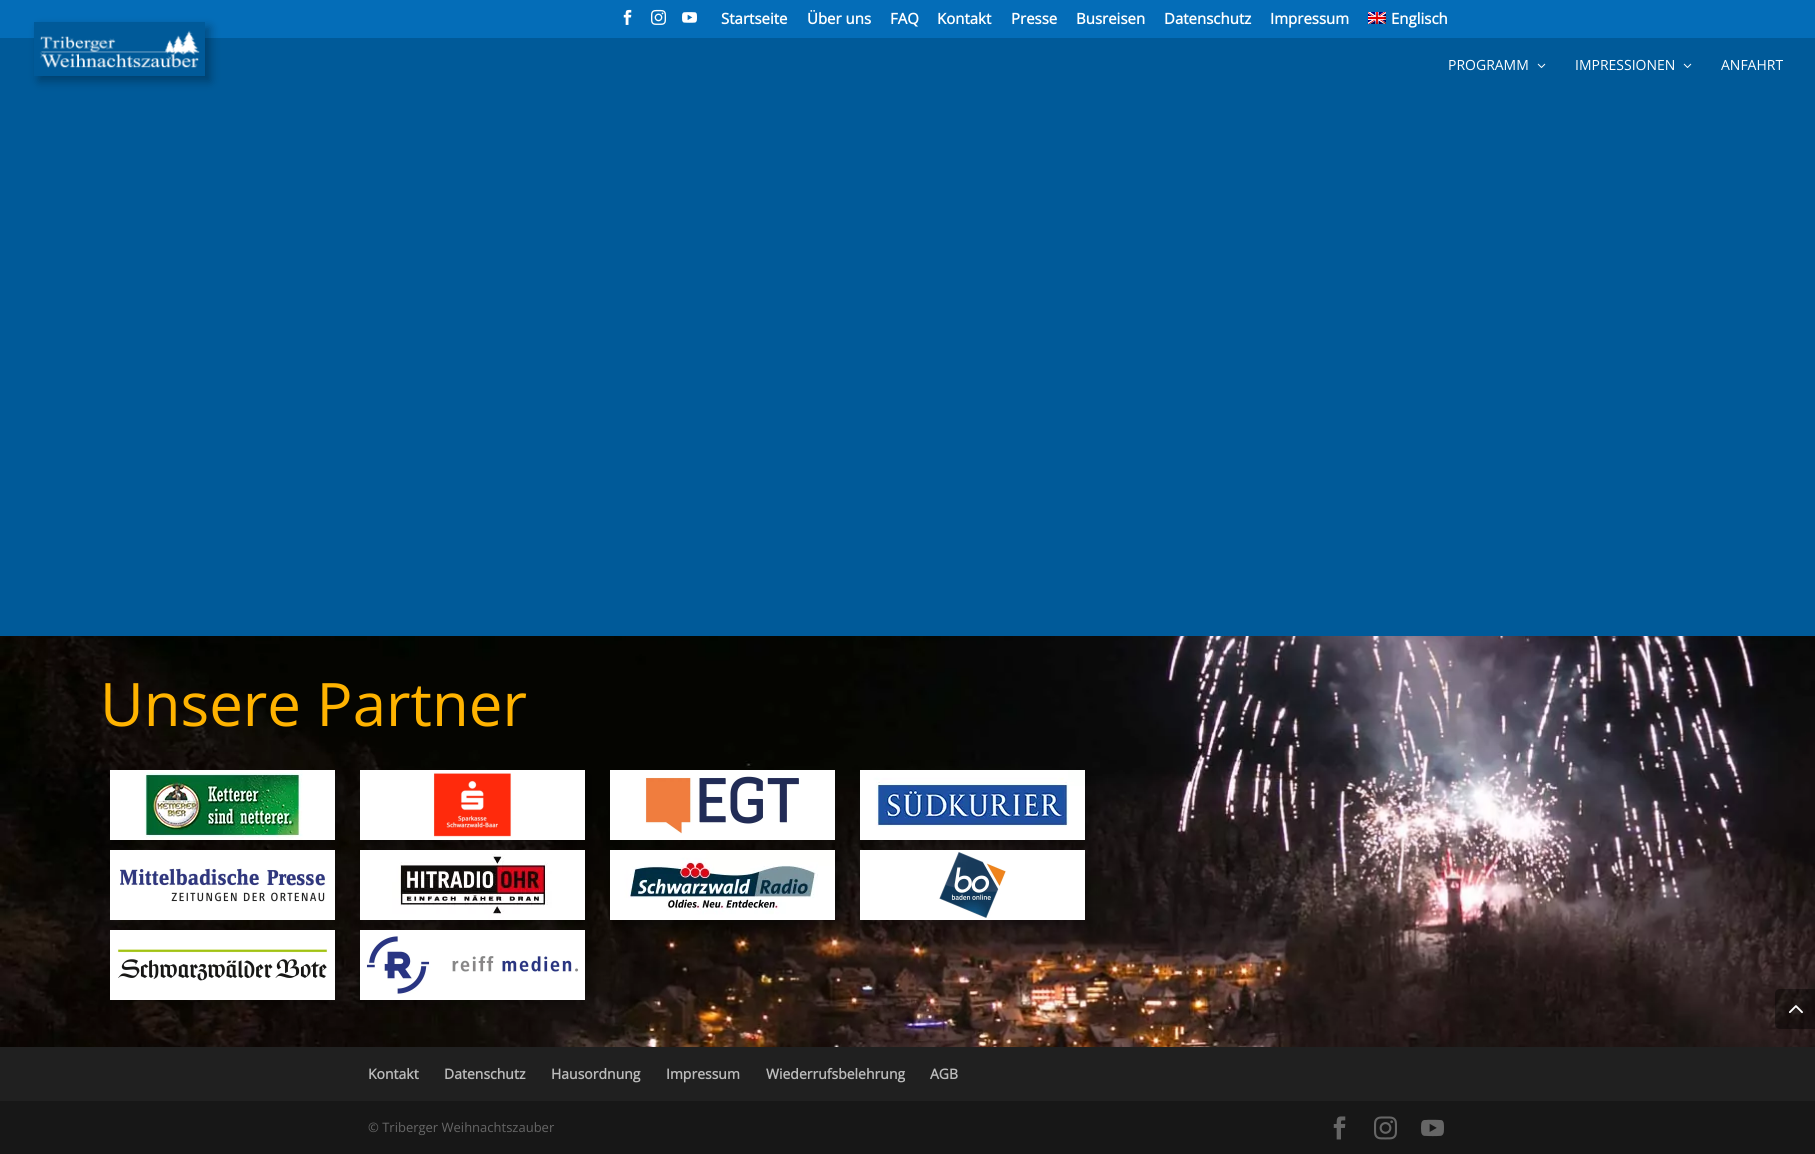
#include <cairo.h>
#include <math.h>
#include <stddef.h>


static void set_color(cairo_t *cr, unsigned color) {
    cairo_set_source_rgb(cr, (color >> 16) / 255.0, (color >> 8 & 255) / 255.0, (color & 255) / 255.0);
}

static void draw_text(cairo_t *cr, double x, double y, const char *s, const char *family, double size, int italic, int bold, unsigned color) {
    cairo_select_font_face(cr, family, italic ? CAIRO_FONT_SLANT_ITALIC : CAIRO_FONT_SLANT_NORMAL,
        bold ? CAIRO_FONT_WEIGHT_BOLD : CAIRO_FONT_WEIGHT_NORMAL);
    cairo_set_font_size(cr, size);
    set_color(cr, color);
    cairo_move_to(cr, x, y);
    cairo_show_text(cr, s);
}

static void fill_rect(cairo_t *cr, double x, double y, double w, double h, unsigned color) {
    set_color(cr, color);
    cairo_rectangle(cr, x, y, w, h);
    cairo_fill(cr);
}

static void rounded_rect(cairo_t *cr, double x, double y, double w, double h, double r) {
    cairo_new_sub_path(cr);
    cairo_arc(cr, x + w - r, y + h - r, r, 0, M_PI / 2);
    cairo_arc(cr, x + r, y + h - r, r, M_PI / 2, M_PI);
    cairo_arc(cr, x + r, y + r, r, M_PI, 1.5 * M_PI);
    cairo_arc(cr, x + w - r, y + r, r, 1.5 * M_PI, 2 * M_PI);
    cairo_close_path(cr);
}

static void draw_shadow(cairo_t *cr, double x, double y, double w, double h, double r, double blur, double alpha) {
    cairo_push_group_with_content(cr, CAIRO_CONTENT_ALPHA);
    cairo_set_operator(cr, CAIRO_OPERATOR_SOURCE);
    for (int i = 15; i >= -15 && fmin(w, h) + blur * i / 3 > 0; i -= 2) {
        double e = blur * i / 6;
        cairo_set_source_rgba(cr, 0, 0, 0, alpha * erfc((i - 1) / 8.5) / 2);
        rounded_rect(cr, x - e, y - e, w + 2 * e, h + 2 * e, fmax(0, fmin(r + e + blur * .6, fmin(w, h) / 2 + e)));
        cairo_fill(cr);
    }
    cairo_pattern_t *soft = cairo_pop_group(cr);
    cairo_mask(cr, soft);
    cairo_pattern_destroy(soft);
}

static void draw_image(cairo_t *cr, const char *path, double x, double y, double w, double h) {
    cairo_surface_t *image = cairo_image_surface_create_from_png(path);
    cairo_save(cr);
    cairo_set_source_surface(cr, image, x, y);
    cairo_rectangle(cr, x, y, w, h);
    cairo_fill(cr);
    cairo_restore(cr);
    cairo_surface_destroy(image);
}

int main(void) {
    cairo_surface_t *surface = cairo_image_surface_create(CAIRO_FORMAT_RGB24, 1815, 1154);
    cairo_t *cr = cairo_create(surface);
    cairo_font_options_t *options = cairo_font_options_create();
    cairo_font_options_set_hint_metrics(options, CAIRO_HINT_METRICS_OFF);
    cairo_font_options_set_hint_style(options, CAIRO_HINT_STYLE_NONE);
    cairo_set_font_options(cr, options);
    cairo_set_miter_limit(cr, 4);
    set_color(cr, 0x005A99);
    cairo_paint(cr);
    fill_rect(cr, 0, 0, 1815, 38, 0x046DB8);
    draw_image(cr, "assets/img1.png", 623, 9, 9, 16);
    draw_image(cr, "assets/img2.png", 651, 9, 15, 16);
    draw_image(cr, "assets/img3.png", 682, 12, 15, 11);
    draw_text(cr, 721, 24, "Startseite", "Open Sans", 15, 0, 1, 0xFFFFFF);
    draw_text(cr, 807, 24, "Über uns", "Open Sans", 15, 0, 1, 0xFFFFFF);
    draw_text(cr, 890, 24, "FAQ", "Open Sans", 15, 0, 1, 0xFFFFFF);
    draw_text(cr, 937, 24, "Kontakt", "Open Sans", 15, 0, 1, 0xFFFFFF);
    draw_text(cr, 1011, 24, "Presse", "Open Sans", 15, 0, 1, 0xFFFFFF);
    draw_text(cr, 1076, 24, "Busreisen", "Open Sans", 15, 0, 1, 0xFFFFFF);
    draw_text(cr, 1164, 24, "Datenschutz", "Open Sans", 15, 0, 1, 0xFFFFFF);
    draw_text(cr, 1270, 24, "Impressum", "Open Sans", 15, 0, 1, 0xFFFFFF);
    draw_image(cr, "assets/img4.png", 1368, 12, 18, 12);
    draw_text(cr, 1391, 24, "Englisch", "Open Sans", 15, 0, 1, 0xFFFFFF);
    cairo_save(cr);
    cairo_set_fill_rule(cr, CAIRO_FILL_RULE_EVEN_ODD);
    cairo_new_path(cr);
    cairo_move_to(cr, 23, 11);
    cairo_line_to(cr, 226, 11);
    cairo_line_to(cr, 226, 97);
    cairo_line_to(cr, 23, 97);
    cairo_close_path(cr);
    cairo_move_to(cr, 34, 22);
    cairo_line_to(cr, 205, 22);
    cairo_line_to(cr, 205, 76);
    cairo_line_to(cr, 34, 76);
    cairo_close_path(cr);
    cairo_clip(cr);
    set_color(cr, 0x000000);
    draw_shadow(cr, 39, 27, 171, 54, 0, 5, 0.3);
    cairo_restore(cr);
    draw_image(cr, "assets/img5.png", 34, 22, 171, 46);
    draw_text(cr, 1448, 70, "PROGRAMM", "Open Sans", 14, 0, 0, 0xFFFFFF);
    draw_image(cr, "assets/img6.png", 1537, 63, 9, 5);
    draw_text(cr, 1575, 70, "IMPRESSIONEN", "Open Sans", 14, 0, 0, 0xFFFFFF);
    draw_image(cr, "assets/img6.png", 1683, 63, 9, 5);
    draw_text(cr, 1721, 70, "ANFAHRT", "Open Sans", 14, 0, 0, 0xFFFFFF);
    draw_image(cr, "assets/img7.png", 0, 636, 1815, 411);
    draw_text(cr, 100, 726, "Unsere Partner", "Open Sans", 60, 0, 0, 0xFFB300);
    set_color(cr, 0x000000);
    draw_shadow(cr, 115, 775, 225, 70, 0, 5, 0.3);
    draw_image(cr, "assets/img8.png", 110, 770, 225, 70);
    draw_shadow(cr, 365, 775, 225, 70, 0, 5, 0.3);
    draw_image(cr, "assets/img9.png", 360, 770, 225, 70);
    draw_image(cr, "assets/img10.png", 610, 770, 225, 70);
    draw_shadow(cr, 865, 775, 225, 70, 0, 5, 0.3);
    draw_image(cr, "assets/img11.png", 860, 770, 225, 70);
    draw_image(cr, "assets/img12.png", 110, 850, 225, 70);
    draw_shadow(cr, 365, 855, 225, 70, 0, 5, 0.3);
    draw_image(cr, "assets/img13.png", 360, 850, 225, 70);
    draw_shadow(cr, 615, 855, 225, 70, 0, 5, 0.3);
    draw_image(cr, "assets/img14.png", 610, 850, 225, 70);
    draw_shadow(cr, 865, 855, 225, 70, 0, 5, 0.3);
    draw_image(cr, "assets/img15.png", 860, 850, 225, 70);
    draw_shadow(cr, 115, 935, 225, 70, 0, 5, 0.3);
    draw_image(cr, "assets/img16.png", 110, 930, 225, 70);
    draw_shadow(cr, 365, 935, 225, 70, 0, 5, 0.3);
    draw_image(cr, "assets/img17.png", 360, 930, 225, 70);
    cairo_set_source_rgba(cr, 0, 0, 0, 0.4);
    cairo_new_path(cr);
    cairo_move_to(cr, 1780, 989);
    cairo_line_to(cr, 1815, 989);
    cairo_line_to(cr, 1815, 1029);
    cairo_line_to(cr, 1780, 1029);
    cairo_curve_to(cr, 1777, 1029, 1775, 1027, 1775, 1024);
    cairo_line_to(cr, 1775, 994);
    cairo_curve_to(cr, 1775, 991, 1777, 989, 1780, 989);
    cairo_close_path(cr);
    cairo_fill(cr);
    draw_image(cr, "assets/img18.png", 1788, 1005, 15, 9);
    fill_rect(cr, 0, 1047, 1815, 54, 0x202020);
    draw_text(cr, 368, 1079, "Kontakt", "Open Sans", 14, 0, 1, 0xBBBBBB);
    draw_text(cr, 444, 1079, "Datenschutz", "Open Sans", 14, 0, 1, 0xBBBBBB);
    draw_text(cr, 551, 1079, "Hausordnung", "Open Sans", 14, 0, 1, 0xBBBBBB);
    draw_text(cr, 666, 1079, "Impressum", "Open Sans", 14, 0, 1, 0xBBBBBB);
    draw_text(cr, 766, 1079, "Wiederrufsbelehrung", "Open Sans", 14, 0, 1, 0xBBBBBB);
    draw_text(cr, 930, 1079, "AGB", "Open Sans", 14, 0, 1, 0xBBBBBB);
    fill_rect(cr, 0, 1101, 1815, 53, 0x171717);
    draw_text(cr, 368, 1132, "© Triberger Weihnachtszauber", "Open Sans", 13, 0, 0, 0x666666);
    draw_image(cr, "assets/img19.png", 1333, 1116, 13, 24);
    draw_image(cr, "assets/img20.png", 1374, 1116, 23, 24);
    draw_image(cr, "assets/img21.png", 1421, 1119, 23, 18);
    cairo_surface_write_to_png(surface, "output.png");
    cairo_font_options_destroy(options);
    cairo_destroy(cr);
    cairo_surface_destroy(surface);
    return 0;
}
